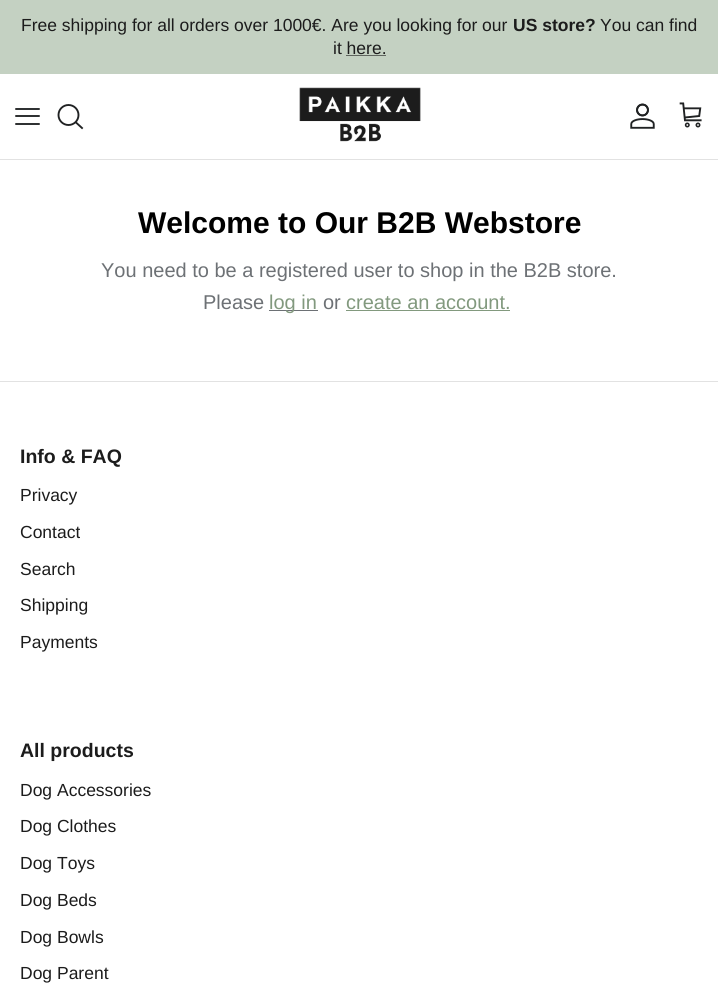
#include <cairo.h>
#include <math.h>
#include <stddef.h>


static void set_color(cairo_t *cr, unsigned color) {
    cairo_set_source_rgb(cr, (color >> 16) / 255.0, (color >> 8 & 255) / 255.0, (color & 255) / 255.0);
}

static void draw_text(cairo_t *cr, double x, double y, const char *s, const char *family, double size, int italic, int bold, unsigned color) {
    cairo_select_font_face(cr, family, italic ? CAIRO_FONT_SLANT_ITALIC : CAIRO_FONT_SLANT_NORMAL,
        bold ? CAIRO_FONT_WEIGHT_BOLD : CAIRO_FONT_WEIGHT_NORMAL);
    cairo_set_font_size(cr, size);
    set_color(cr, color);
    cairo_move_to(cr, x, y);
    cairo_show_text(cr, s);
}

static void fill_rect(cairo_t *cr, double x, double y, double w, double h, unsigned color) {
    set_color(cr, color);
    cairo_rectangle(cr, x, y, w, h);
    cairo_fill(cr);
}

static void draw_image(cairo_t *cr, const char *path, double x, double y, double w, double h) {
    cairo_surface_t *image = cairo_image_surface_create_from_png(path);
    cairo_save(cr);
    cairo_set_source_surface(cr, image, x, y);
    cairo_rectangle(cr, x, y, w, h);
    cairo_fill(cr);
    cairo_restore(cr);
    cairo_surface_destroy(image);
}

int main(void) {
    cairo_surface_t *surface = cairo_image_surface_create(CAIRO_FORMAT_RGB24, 718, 1002);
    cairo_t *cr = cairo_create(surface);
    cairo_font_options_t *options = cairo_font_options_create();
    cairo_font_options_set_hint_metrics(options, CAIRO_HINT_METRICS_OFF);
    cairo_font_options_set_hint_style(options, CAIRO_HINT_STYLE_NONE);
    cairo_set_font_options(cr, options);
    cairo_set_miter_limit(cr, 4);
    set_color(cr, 0xFFFFFF);
    cairo_paint(cr);
    fill_rect(cr, 0, 0, 718, 74, 0xC4D1C2);
    draw_text(cr, 21, 31, "Free shipping for all orders over 1000€. Are you looking for our", "Liberation Sans", 17.5, 0, 0, 0x1C1C1C);
    draw_text(cr, 513, 31, "US store?", "Liberation Sans", 17.5, 0, 1, 0x1C1C1C);
    draw_text(cr, 600, 31, "You can find", "Liberation Sans", 17.5, 0, 0, 0x1C1C1C);
    draw_text(cr, 333, 54, "it here.", "Liberation Sans", 17.5, 0, 0, 0x1C1C1C);
    fill_rect(cr, 346, 55, 40, 1, 0x5F645E);
    fill_rect(cr, 0, 159, 718, 1, 0xE2E2E2);
    cairo_new_path(cr);
    cairo_move_to(cr, 16, 116);
    cairo_line_to(cr, 39, 116);
    cairo_move_to(cr, 16, 109);
    cairo_line_to(cr, 39, 109);
    cairo_move_to(cr, 16, 124);
    cairo_line_to(cr, 39, 124);
    set_color(cr, 0x202223);
    cairo_set_line_width(cr, 1.9);
    cairo_set_line_cap(cr, CAIRO_LINE_CAP_ROUND);
    cairo_set_line_join(cr, CAIRO_LINE_JOIN_ROUND);
    cairo_stroke(cr);
    cairo_arc(cr, 68.5, 115, 10, 0, 2 * M_PI);
    cairo_set_line_cap(cr, CAIRO_LINE_CAP_BUTT);
    cairo_set_line_join(cr, CAIRO_LINE_JOIN_MITER);
    cairo_stroke(cr);
    cairo_new_path(cr);
    cairo_move_to(cr, 76, 122.5);
    cairo_line_to(cr, 82, 128);
    cairo_set_line_cap(cr, CAIRO_LINE_CAP_SQUARE);
    cairo_stroke(cr);
    draw_image(cr, "assets/img1.png", 299, 87, 122, 55);
    draw_image(cr, "assets/img2.png", 630, 103, 25, 26);
    draw_image(cr, "assets/img3.png", 679, 102, 23, 26);
    draw_text(cr, 138, 233, "Welcome to Our B2B Webstore", "Liberation Sans", 30, 0, 1, 0x000000);
    draw_text(cr, 101, 277, "You need to be a registered user to shop in the B2B store.", "Liberation Sans", 20, 0, 0, 0x6D7175);
    draw_text(cr, 203, 309, "Please", "Liberation Sans", 20, 0, 0, 0x6D7175);
    fill_rect(cr, 269, 310, 49, 1, 0x6D7175);
    draw_text(cr, 269, 309, "log in", "Liberation Sans", 20, 0, 0, 0x82997E);
    draw_text(cr, 323, 309, "or", "Liberation Sans", 20, 0, 0, 0x6D7175);
    draw_text(cr, 346, 309, "create an account.", "Liberation Sans", 20, 0, 0, 0x82997E);
    fill_rect(cr, 346, 310, 164, 1, 0x82997E);
    fill_rect(cr, 0, 381, 718, 1, 0xE2E2E2);
    draw_text(cr, 20, 463, "Info & FAQ", "Liberation Sans", 19.5, 0, 1, 0x1C1C1C);
    draw_text(cr, 20, 501, "Privacy", "Liberation Sans", 17.5, 0, 0, 0x1C1C1C);
    draw_text(cr, 20, 538, "Contact", "Liberation Sans", 17.5, 0, 0, 0x1C1C1C);
    draw_text(cr, 20, 575, "Search", "Liberation Sans", 17.5, 0, 0, 0x1C1C1C);
    draw_text(cr, 20, 611, "Shipping", "Liberation Sans", 17.5, 0, 0, 0x1C1C1C);
    draw_text(cr, 20, 648, "Payments", "Liberation Sans", 17.5, 0, 0, 0x1C1C1C);
    draw_text(cr, 20, 757, "All products", "Liberation Sans", 19.5, 0, 1, 0x1C1C1C);
    draw_text(cr, 20, 796, "Dog Accessories", "Liberation Sans", 17.5, 0, 0, 0x1C1C1C);
    draw_text(cr, 20, 832, "Dog Clothes", "Liberation Sans", 17.5, 0, 0, 0x1C1C1C);
    draw_text(cr, 20, 869, "Dog Toys", "Liberation Sans", 17.5, 0, 0, 0x1C1C1C);
    draw_text(cr, 20, 906, "Dog Beds", "Liberation Sans", 17.5, 0, 0, 0x1C1C1C);
    draw_text(cr, 20, 943, "Dog Bowls", "Liberation Sans", 17.5, 0, 0, 0x1C1C1C);
    draw_text(cr, 20, 979, "Dog Parent", "Liberation Sans", 17.5, 0, 0, 0x1C1C1C);
    cairo_surface_write_to_png(surface, "output.png");
    cairo_font_options_destroy(options);
    cairo_destroy(cr);
    cairo_surface_destroy(surface);
    return 0;
}
